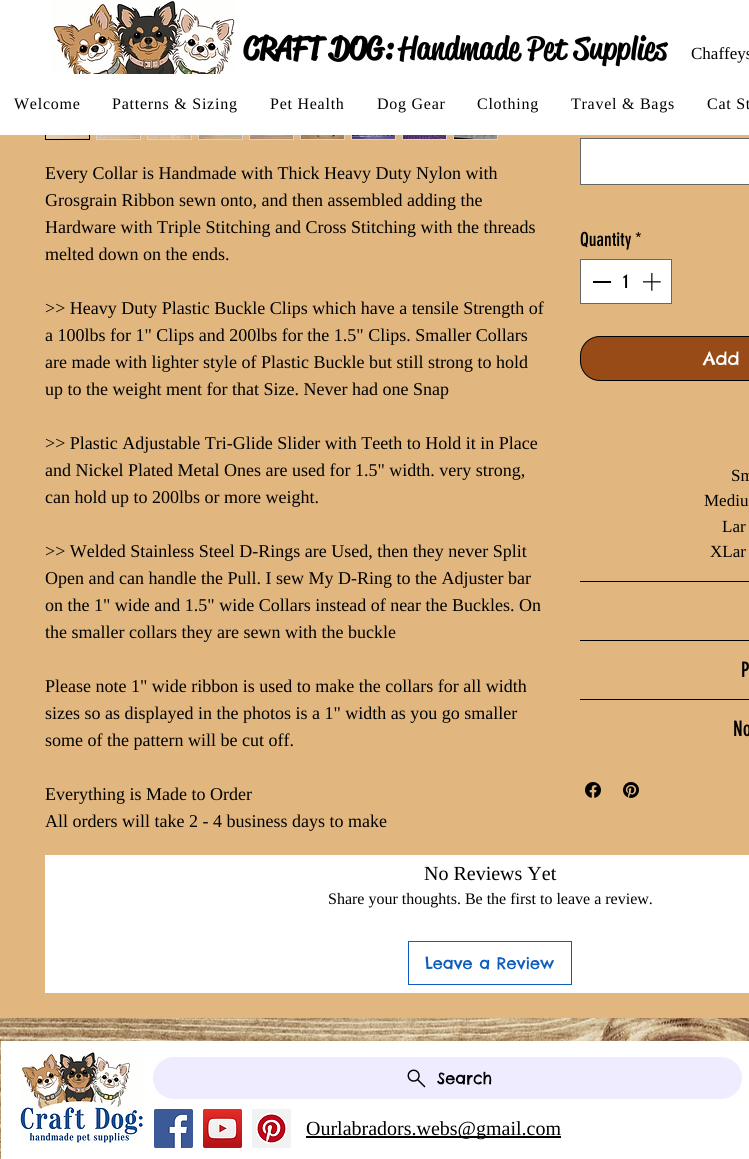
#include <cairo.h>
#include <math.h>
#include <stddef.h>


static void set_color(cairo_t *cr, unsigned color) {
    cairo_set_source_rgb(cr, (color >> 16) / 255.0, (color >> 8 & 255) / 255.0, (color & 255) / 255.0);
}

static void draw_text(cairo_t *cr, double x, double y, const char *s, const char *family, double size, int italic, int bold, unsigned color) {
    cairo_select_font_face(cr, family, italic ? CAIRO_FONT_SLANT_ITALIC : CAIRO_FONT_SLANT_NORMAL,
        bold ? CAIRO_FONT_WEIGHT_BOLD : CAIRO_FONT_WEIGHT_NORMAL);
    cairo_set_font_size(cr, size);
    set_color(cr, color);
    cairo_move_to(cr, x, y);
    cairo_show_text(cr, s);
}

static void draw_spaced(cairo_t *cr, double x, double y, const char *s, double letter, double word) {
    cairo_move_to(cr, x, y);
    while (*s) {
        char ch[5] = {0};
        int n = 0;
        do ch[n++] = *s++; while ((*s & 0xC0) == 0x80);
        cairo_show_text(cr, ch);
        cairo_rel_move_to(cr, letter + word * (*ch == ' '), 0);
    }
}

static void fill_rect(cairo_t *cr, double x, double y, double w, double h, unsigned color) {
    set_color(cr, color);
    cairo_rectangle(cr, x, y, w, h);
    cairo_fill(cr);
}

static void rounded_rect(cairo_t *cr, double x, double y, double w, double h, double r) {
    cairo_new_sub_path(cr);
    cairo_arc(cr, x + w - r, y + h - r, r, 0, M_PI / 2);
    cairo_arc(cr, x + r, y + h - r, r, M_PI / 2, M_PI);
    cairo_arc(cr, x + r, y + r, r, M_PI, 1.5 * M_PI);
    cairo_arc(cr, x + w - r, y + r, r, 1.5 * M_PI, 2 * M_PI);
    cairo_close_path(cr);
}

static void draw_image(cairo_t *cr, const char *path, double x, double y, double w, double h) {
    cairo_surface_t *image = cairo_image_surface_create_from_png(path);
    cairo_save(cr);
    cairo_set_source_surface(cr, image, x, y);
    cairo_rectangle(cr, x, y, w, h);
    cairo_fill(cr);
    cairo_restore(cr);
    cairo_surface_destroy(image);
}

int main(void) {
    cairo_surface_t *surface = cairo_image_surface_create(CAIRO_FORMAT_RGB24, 749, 1159);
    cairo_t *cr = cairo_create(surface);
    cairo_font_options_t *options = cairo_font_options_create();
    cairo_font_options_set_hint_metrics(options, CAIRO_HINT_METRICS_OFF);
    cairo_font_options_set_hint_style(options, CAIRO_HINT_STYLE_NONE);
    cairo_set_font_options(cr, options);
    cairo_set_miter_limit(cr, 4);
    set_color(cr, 0xFFFFFF);
    cairo_paint(cr);
    draw_image(cr, "assets/img1.png", 51, 0, 184, 74);
    draw_text(cr, 243, 59, "CRAFT DOG:", "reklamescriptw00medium", 32, 0, 1, 0x000000);
    draw_text(cr, 399, 59, "Handmade Pet Supplies", "reklamescriptw00medium Medium", 32, 0, 0, 0x000000);
    draw_text(cr, 691, 59, "Chaffeys", "Liberation Serif", 17, 0, 0, 0x000000);
    fill_rect(cr, 0, 135, 749, 883, 0xE2B77F);
    cairo_rectangle(cr, 45.5, 95.5, 44, 44);
    set_color(cr, 0x000000);
    cairo_set_line_width(cr, 1);
    cairo_stroke(cr);
    fill_rect(cr, 45, 95, 45, 40, 0xFFFFFF);
    cairo_set_font_size(cr, 16);
    set_color(cr, 0x000000);
    draw_spaced(cr, 14, 109, "Welcome", 0.75, 0);
    draw_spaced(cr, 112, 109, "Patterns & Sizing", 0.75, 0);
    draw_spaced(cr, 270, 109, "Pet Health", 0.75, 0);
    draw_spaced(cr, 377, 109, "Dog Gear", 0.75, 0);
    draw_spaced(cr, 477, 109, "Clothing", 0.75, 0);
    draw_spaced(cr, 571, 109, "Travel & Bags", 0.75, 0);
    draw_spaced(cr, 707, 109, "Cat St", 0.75, 0);
    draw_image(cr, "assets/img2.png", 46, 135, 43, 4);
    fill_rect(cr, 96, 135, 45, 5, 0xD4D4D4);
    draw_image(cr, "assets/img3.png", 97, 135, 43, 4);
    fill_rect(cr, 147, 135, 45, 5, 0xD4D4D4);
    draw_image(cr, "assets/img4.png", 148, 135, 43, 4);
    fill_rect(cr, 198, 135, 45, 5, 0xD4D4D4);
    draw_image(cr, "assets/img5.png", 199, 135, 43, 4);
    fill_rect(cr, 249, 135, 45, 5, 0xD4D4D4);
    draw_image(cr, "assets/img6.png", 250, 135, 43, 4);
    fill_rect(cr, 300, 135, 45, 5, 0xD4D4D4);
    draw_image(cr, "assets/img7.png", 301, 135, 43, 4);
    fill_rect(cr, 351, 135, 45, 5, 0xD4D4D4);
    draw_image(cr, "assets/img8.png", 352, 135, 43, 4);
    fill_rect(cr, 402, 135, 45, 5, 0xD4D4D4);
    draw_image(cr, "assets/img9.png", 403, 135, 43, 4);
    fill_rect(cr, 453, 135, 45, 5, 0xD4D4D4);
    draw_image(cr, "assets/img10.png", 454, 135, 43, 4);
    draw_text(cr, 45, 179, "Every Collar is Handmade with Thick Heavy Duty Nylon with", "Liberation Serif", 18, 0, 0, 0x000000);
    draw_text(cr, 45, 206, "Grosgrain Ribbon sewn onto, and then assembled adding the", "Liberation Serif", 18, 0, 0, 0x000000);
    draw_text(cr, 45, 233, "Hardware with Triple Stitching and Cross Stitching with the threads", "Liberation Serif", 18, 0, 0, 0x000000);
    draw_text(cr, 45, 260, "melted down on the ends.", "Liberation Serif", 18, 0, 0, 0x000000);
    draw_text(cr, 45, 314, ">> Heavy Duty Plastic Buckle Clips which have a tensile Strength of", "Liberation Serif", 18, 0, 0, 0x000000);
    draw_text(cr, 45, 341, "a 100lbs for 1\" Clips and 200lbs for the 1.5\" Clips. Smaller Collars", "Liberation Serif", 18, 0, 0, 0x000000);
    draw_text(cr, 45, 368, "are made with lighter style of Plastic Buckle but still strong to hold", "Liberation Serif", 18, 0, 0, 0x000000);
    draw_text(cr, 45, 395, "up to the weight ment for that Size. Never had one Snap", "Liberation Serif", 18, 0, 0, 0x000000);
    draw_text(cr, 45, 449, ">> Plastic Adjustable Tri-Glide Slider with Teeth to Hold it in Place", "Liberation Serif", 18, 0, 0, 0x000000);
    draw_text(cr, 45, 476, "and Nickel Plated Metal Ones are used for 1.5\" width. very strong,", "Liberation Serif", 18, 0, 0, 0x000000);
    draw_text(cr, 45, 503, "can hold up to 200lbs or more weight.", "Liberation Serif", 18, 0, 0, 0x000000);
    draw_text(cr, 45, 557, ">> Welded Stainless Steel D-Rings are Used, then they never Split", "Liberation Serif", 18, 0, 0, 0x000000);
    draw_text(cr, 45, 584, "Open and can handle the Pull. I sew My D-Ring to the Adjuster bar", "Liberation Serif", 18, 0, 0, 0x000000);
    draw_text(cr, 45, 611, "on the 1\" wide and 1.5\" wide Collars instead of near the Buckles. On", "Liberation Serif", 18, 0, 0, 0x000000);
    draw_text(cr, 45, 638, "the smaller collars they are sewn with the buckle", "Liberation Serif", 18, 0, 0, 0x000000);
    draw_text(cr, 45, 692, "Please note 1\" wide ribbon is used to make the collars for all width", "Liberation Serif", 18, 0, 0, 0x000000);
    draw_text(cr, 45, 719, "sizes so as displayed in the photos is a 1\" width as you go smaller", "Liberation Serif", 18, 0, 0, 0x000000);
    draw_text(cr, 45, 746, "some of the pattern will be cut off.", "Liberation Serif", 18, 0, 0, 0x000000);
    draw_text(cr, 45, 800, "Everything is Made to Order", "Liberation Serif", 18, 0, 0, 0x000000);
    draw_text(cr, 45, 827, "All orders will take 2 - 4 business days to make", "Liberation Serif", 18, 0, 0, 0x000000);
    set_color(cr, 0xFFFFFF);
    cairo_rectangle(cr, 580.5, 138.5, 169, 46);
    cairo_fill_preserve(cr);
    set_color(cr, 0x666666);
    cairo_stroke(cr);
    draw_text(cr, 580, 246, "Quantity", "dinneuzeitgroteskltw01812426", 19, 0, 0, 0x000000);
    draw_text(cr, 635, 246, "*", "dinneuzeitgroteskltw01812426", 19, 0, 0, 0x000000);
    set_color(cr, 0xFFFFFF);
    cairo_rectangle(cr, 580.5, 259.5, 91, 44);
    cairo_fill_preserve(cr);
    set_color(cr, 0x666666);
    cairo_stroke(cr);
    fill_rect(cr, 593, 281, 18, 2, 0x000000);
    draw_text(cr, 623, 288, "1", "dinneuzeitgroteskltw01812426", 19, 0, 0, 0x000000);
    draw_image(cr, "assets/img11.png", 642, 272, 19, 19);
    set_color(cr, 0x994B17);
    rounded_rect(cr, 580.5, 336.5, 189, 44, 19.5);
    cairo_fill_preserve(cr);
    set_color(cr, 0x000000);
    cairo_stroke(cr);
    draw_text(cr, 703, 365, "Add", "Chelsea Market", 18, 0, 0, 0xFFFFFF);
    fill_rect(cr, 580, 581, 169, 1, 0x000000);
    draw_text(cr, 731, 481, "Sm", "Liberation Serif", 17, 0, 0, 0x000000);
    draw_text(cr, 704, 506, "Mediu", "Liberation Serif", 17, 0, 0, 0x000000);
    draw_text(cr, 722, 532, "Lar", "Liberation Serif", 17, 0, 0, 0x000000);
    draw_text(cr, 710, 557, "XLar", "Liberation Serif", 17, 0, 0, 0x000000);
    fill_rect(cr, 580, 640, 169, 1, 0x000000);
    fill_rect(cr, 580, 699, 169, 1, 0x000000);
    draw_text(cr, 741, 677, "P", "dinneuzeitgroteskltw01812426", 21, 0, 0, 0x000000);
    draw_text(cr, 733, 736, "No", "dinneuzeitgroteskltw01812426", 21, 0, 0, 0x000000);
    draw_image(cr, "assets/img12.png", 585, 782, 16, 16);
    draw_image(cr, "assets/img13.png", 623, 782, 16, 16);
    fill_rect(cr, 45, 855, 704, 138, 0xFFFFFF);
    draw_text(cr, 424, 880, "No Reviews Yet", "Liberation Serif", 20, 0, 0, 0x000000);
    draw_text(cr, 328, 904, "Share your thoughts. Be the first to leave a review.", "Liberation Serif", 16, 0, 0, 0x000000);
    cairo_rectangle(cr, 408.5, 941.5, 163, 43);
    set_color(cr, 0x0D5EBA);
    cairo_stroke(cr);
    draw_text(cr, 425, 969, "Leave a Review", "Chelsea Market", 16, 0, 0, 0x0D5EBA);
    draw_image(cr, "assets/img19.png", 0, 1018, 749, 141);
    fill_rect(cr, 1, 1041, 748, 118, 0xFFFFFF);
    draw_image(cr, "assets/img14.png", 20, 1050, 125, 95);
    set_color(cr, 0xEEECFE);
    rounded_rect(cr, 153, 1057, 589, 42, 21);
    cairo_fill(cr);
    draw_image(cr, "assets/img15.png", 407, 1069, 19, 19);
    draw_text(cr, 437, 1084, "Search", "Chelsea Market", 16, 0, 0, 0x000000);
    draw_image(cr, "assets/img16.png", 154, 1109, 39, 39);
    draw_image(cr, "assets/img17.png", 203, 1109, 39, 39);
    draw_image(cr, "assets/img18.png", 252, 1109, 39, 39);
    fill_rect(cr, 306, 1136, 255, 2, 0x000000);
    draw_text(cr, 306, 1135, "Ourlabradors.webs@gmail.com", "Liberation Serif", 20, 0, 0, 0x000000);
    cairo_surface_write_to_png(surface, "output.png");
    cairo_font_options_destroy(options);
    cairo_destroy(cr);
    cairo_surface_destroy(surface);
    return 0;
}
